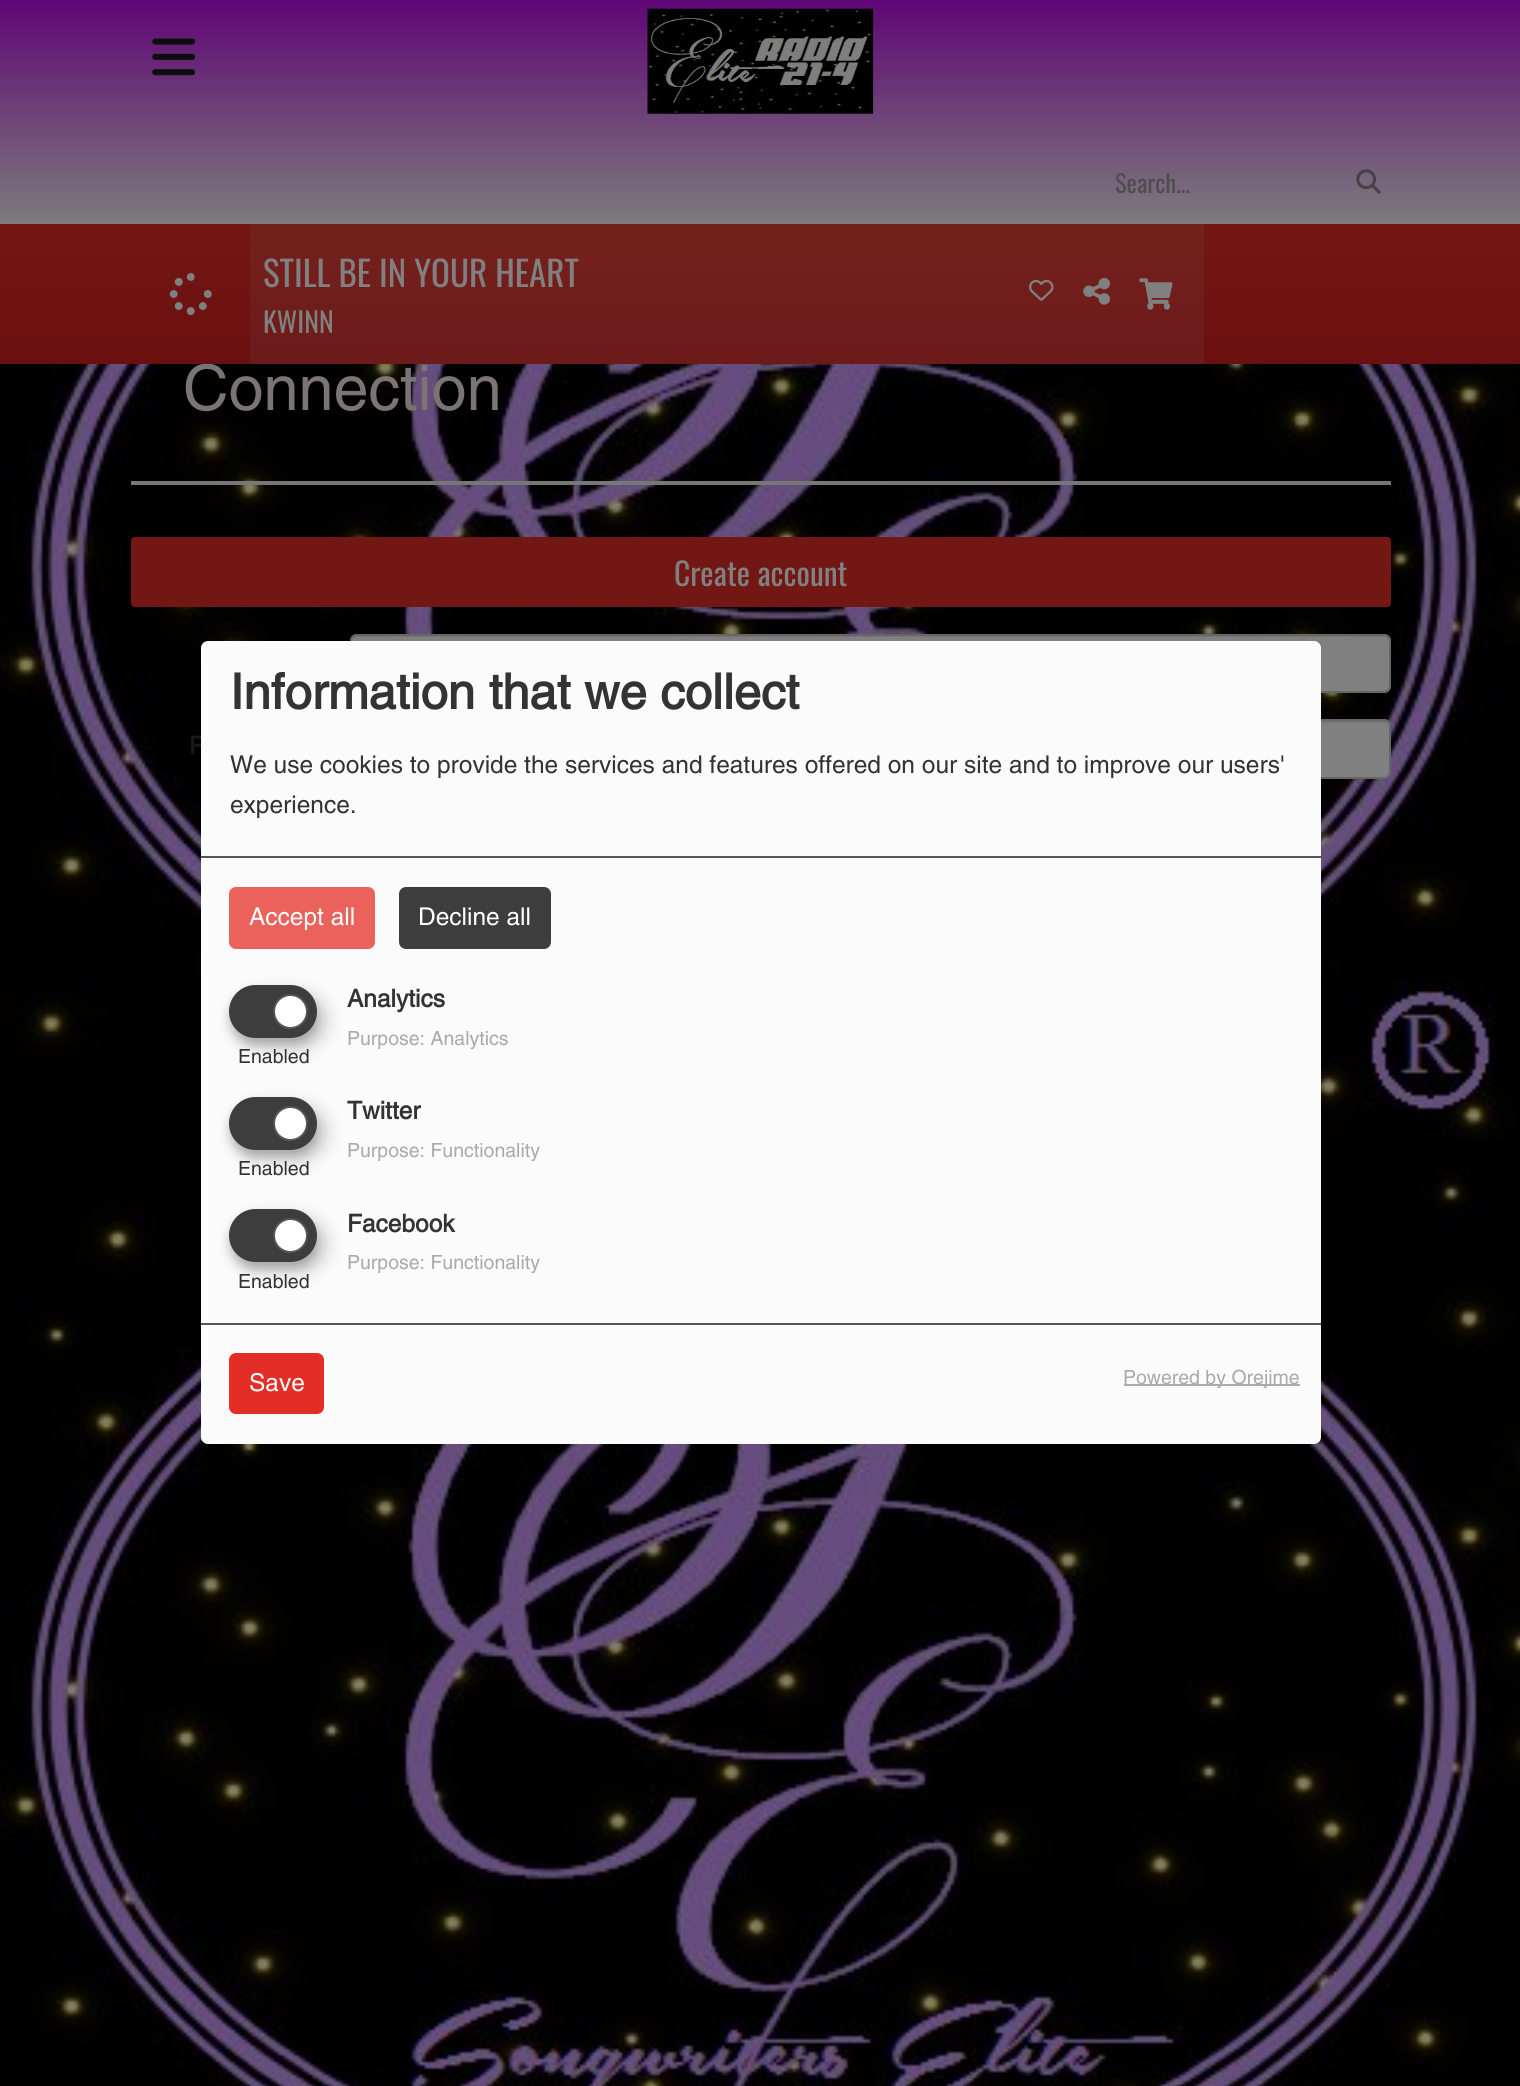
#include <cairo.h>
#include <math.h>
#include <stddef.h>


static void set_color(cairo_t *cr, unsigned color) {
    cairo_set_source_rgb(cr, (color >> 16) / 255.0, (color >> 8 & 255) / 255.0, (color & 255) / 255.0);
}

static void draw_text(cairo_t *cr, double x, double y, const char *s, const char *family, double size, int italic, int bold, unsigned color) {
    cairo_select_font_face(cr, family, italic ? CAIRO_FONT_SLANT_ITALIC : CAIRO_FONT_SLANT_NORMAL,
        bold ? CAIRO_FONT_WEIGHT_BOLD : CAIRO_FONT_WEIGHT_NORMAL);
    cairo_set_font_size(cr, size);
    set_color(cr, color);
    cairo_move_to(cr, x, y);
    cairo_show_text(cr, s);
}

static void fill_rect(cairo_t *cr, double x, double y, double w, double h, unsigned color) {
    set_color(cr, color);
    cairo_rectangle(cr, x, y, w, h);
    cairo_fill(cr);
}

static void rounded_rect(cairo_t *cr, double x, double y, double w, double h, double r) {
    cairo_new_sub_path(cr);
    cairo_arc(cr, x + w - r, y + h - r, r, 0, M_PI / 2);
    cairo_arc(cr, x + r, y + h - r, r, M_PI / 2, M_PI);
    cairo_arc(cr, x + r, y + r, r, M_PI, 1.5 * M_PI);
    cairo_arc(cr, x + w - r, y + r, r, 1.5 * M_PI, 2 * M_PI);
    cairo_close_path(cr);
}

static void draw_shadow(cairo_t *cr, double x, double y, double w, double h, double r, double blur, double alpha) {
    cairo_push_group_with_content(cr, CAIRO_CONTENT_ALPHA);
    cairo_set_operator(cr, CAIRO_OPERATOR_SOURCE);
    for (int i = 15; i >= -15 && fmin(w, h) + blur * i / 3 > 0; i -= 2) {
        double e = blur * i / 6;
        cairo_set_source_rgba(cr, 0, 0, 0, alpha * erfc((i - 1) / 8.5) / 2);
        rounded_rect(cr, x - e, y - e, w + 2 * e, h + 2 * e, fmax(0, fmin(r + e + blur * .6, fmin(w, h) / 2 + e)));
        cairo_fill(cr);
    }
    cairo_pattern_t *soft = cairo_pop_group(cr);
    cairo_mask(cr, soft);
    cairo_pattern_destroy(soft);
}

static void draw_image(cairo_t *cr, const char *path, double x, double y, double w, double h) {
    cairo_surface_t *image = cairo_image_surface_create_from_png(path);
    cairo_save(cr);
    cairo_set_source_surface(cr, image, x, y);
    cairo_rectangle(cr, x, y, w, h);
    cairo_fill(cr);
    cairo_restore(cr);
    cairo_surface_destroy(image);
}

int main(void) {
    cairo_surface_t *surface = cairo_image_surface_create(CAIRO_FORMAT_RGB24, 1520, 2086);
    cairo_t *cr = cairo_create(surface);
    cairo_font_options_t *options = cairo_font_options_create();
    cairo_font_options_set_hint_metrics(options, CAIRO_HINT_METRICS_OFF);
    cairo_font_options_set_hint_style(options, CAIRO_HINT_STYLE_NONE);
    cairo_set_font_options(cr, options);
    cairo_set_miter_limit(cr, 4);
    cairo_pattern_t *gradient;
    set_color(cr, 0xFFFFFF);
    cairo_paint(cr);
    draw_image(cr, "assets/img1.png", 0, 364, 1520, 1722);
    gradient = cairo_pattern_create_linear(760, 0, 760, 224);
    cairo_pattern_add_color_stop_rgba(gradient, 0, 0.373, 0.027, 0.459, 1);
    cairo_pattern_add_color_stop_rgba(gradient, 1, 0.486, 0.486, 0.486, 1);
    cairo_set_source(cr, gradient);
    cairo_pattern_destroy(gradient);
    cairo_rectangle(cr, 0, 0, 1520, 224);
    cairo_fill(cr);
    draw_image(cr, "assets/img2.png", 152, 38, 44, 38);
    draw_image(cr, "assets/img3.png", 647, 8, 227, 106);
    draw_text(cr, 1115, 193, "Search...", "Oswald", 24.5, 0, 0, 0x504B51);
    draw_image(cr, "assets/img4.png", 1356, 169, 25, 25);
    draw_text(cr, 183, 410, "Connection", "Helvetica", 63, 0, 0, 0x7B7474);
    gradient = cairo_pattern_create_linear(760, 224, 760, 364);
    cairo_pattern_add_color_stop_rgba(gradient, 0, 0.451, 0.09, 0.078, 1);
    cairo_pattern_add_color_stop_rgba(gradient, 1, 0.42, 0.063, 0.063, 1);
    cairo_set_source(cr, gradient);
    cairo_pattern_destroy(gradient);
    cairo_rectangle(cr, 0, 224, 1520, 140);
    cairo_fill(cr);
    draw_image(cr, "assets/img5.png", 169, 273, 43, 42);
    cairo_set_source_rgba(cr, 0.502, 0.502, 0.502, 0.1);
    cairo_rectangle(cr, 250, 224, 954, 140);
    cairo_fill(cr);
    draw_text(cr, 263, 287, "STILL BE IN YOUR HEART", "Oswald", 35, 0, 0, 0x808080);
    draw_text(cr, 263, 333, "KWINN", "Oswald", 28, 0, 0, 0x808080);
    draw_image(cr, "assets/img6.png", 1029, 279, 25, 22);
    draw_image(cr, "assets/img7.png", 1083, 277, 27, 28);
    draw_image(cr, "assets/img8.png", 1139, 278, 34, 32);
    fill_rect(cr, 131, 481, 1260, 4, 0x777777);
    set_color(cr, 0x731714);
    rounded_rect(cr, 131, 537, 1260, 70, 4);
    cairo_fill(cr);
    draw_text(cr, 674, 586, "Create account", "Oswald", 31.5, 0, 0, 0x808080);
    rounded_rect(cr, 350, 634, 1041, 59, 7);
    cairo_fill(cr);
    set_color(cr, 0x767676);
    cairo_new_path(cr);
    cairo_move_to(cr, 357, 637);
    cairo_line_to(cr, 1384, 637);
    cairo_curve_to(cr, 1387, 637, 1390, 639, 1390, 642);
    cairo_line_to(cr, 1390, 640);
    cairo_curve_to(cr, 1390, 637, 1388, 635, 1385, 635);
    cairo_line_to(cr, 357, 635);
    cairo_curve_to(cr, 354, 635, 352, 637, 352, 640);
    cairo_line_to(cr, 352, 642);
    cairo_curve_to(cr, 352, 639, 354, 637, 357, 637);
    cairo_close_path(cr);
    cairo_fill(cr);
    rounded_rect(cr, 351, 635, 1039, 57, 6);
    set_color(cr, 0x666666);
    cairo_stroke(cr);
    draw_text(cr, 189, 754, "P", "Helvetica", 24.5, 0, 1, 0x1A1A1A);
    set_color(cr, 0x808080);
    rounded_rect(cr, 350, 719, 1041, 60, 7);
    cairo_fill(cr);
    set_color(cr, 0x767676);
    cairo_new_path(cr);
    cairo_move_to(cr, 357, 723);
    cairo_line_to(cr, 1384, 723);
    cairo_curve_to(cr, 1387, 723, 1390, 725, 1390, 728);
    cairo_line_to(cr, 1390, 726);
    cairo_curve_to(cr, 1390, 723, 1388, 721, 1385, 721);
    cairo_line_to(cr, 357, 721);
    cairo_curve_to(cr, 354, 721, 352, 723, 352, 726);
    cairo_line_to(cr, 352, 728);
    cairo_curve_to(cr, 352, 725, 354, 723, 357, 723);
    cairo_close_path(cr);
    cairo_fill(cr);
    rounded_rect(cr, 351, 720, 1039, 58, 6);
    set_color(cr, 0x666666);
    cairo_stroke(cr);
    cairo_save(cr);
    cairo_rectangle(cr, 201, 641, 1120, 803);
    cairo_clip(cr);
    set_color(cr, 0x000000);
    draw_shadow(cr, 210, 649, 1120, 804, 7, 9, 0.19);
    draw_shadow(cr, 201, 648, 1120, 803, 7, 5, 0.2);
    cairo_restore(cr);
    set_color(cr, 0xFBFBFB);
    rounded_rect(cr, 201, 641, 1120, 803, 7);
    cairo_fill(cr);
    fill_rect(cr, 201, 856, 1120, 2, 0x555555);
    draw_text(cr, 230, 709, "Information that we collect", "Helvetica", 49, 0, 1, 0x333333);
    draw_text(cr, 230, 773, "We use cookies to provide the services and features offered on our site and to improve our users'", "Helvetica", 24.5, 0, 0, 0x333333);
    draw_text(cr, 230, 813, "experience.", "Helvetica", 24.5, 0, 0, 0x333333);
    set_color(cr, 0xEB615C);
    rounded_rect(cr, 229, 887, 146, 62, 7);
    cairo_fill(cr);
    draw_text(cr, 249, 925, "Accept all", "Helvetica", 24.5, 0, 0, 0xFFFFFF);
    set_color(cr, 0x3E3D3D);
    rounded_rect(cr, 399, 887, 152, 62, 7);
    cairo_fill(cr);
    draw_text(cr, 418, 925, "Decline all", "Helvetica", 24.5, 0, 0, 0xFFFFFF);
    draw_text(cr, 347, 1007, "Analytics", "Helvetica", 24.5, 0, 1, 0x333333);
    set_color(cr, 0x000000);
    draw_shadow(cr, 238, 994, 88, 53, 26.5, 9, 0.19);
    draw_shadow(cr, 229, 992, 88, 53, 26.5, 5, 0.2);
    set_color(cr, 0x3E3D3D);
    rounded_rect(cr, 229, 985, 88, 53, 26.5);
    cairo_fill(cr);
    set_color(cr, 0xFFFFFF);
    cairo_arc(cr, 290.5, 1011.5, 16.5, 0, 2 * M_PI);
    cairo_fill_preserve(cr);
    set_color(cr, 0x555555);
    cairo_stroke(cr);
    draw_text(cr, 238, 1063, "Enabled", "Helvetica", 19.5, 0, 0, 0x333333);
    draw_text(cr, 347, 1045, "Purpose: Analytics", "Helvetica", 19.5, 0, 0, 0xAAAAAA);
    draw_text(cr, 347, 1119, "Twitter", "Helvetica", 24.5, 0, 1, 0x333333);
    set_color(cr, 0x000000);
    draw_shadow(cr, 238, 1106, 88, 53, 26.5, 9, 0.19);
    draw_shadow(cr, 229, 1104, 88, 53, 26.5, 5, 0.2);
    set_color(cr, 0x3E3D3D);
    rounded_rect(cr, 229, 1097, 88, 53, 26.5);
    cairo_fill(cr);
    set_color(cr, 0xFFFFFF);
    cairo_arc(cr, 290.5, 1123.5, 16.5, 0, 2 * M_PI);
    cairo_fill_preserve(cr);
    set_color(cr, 0x555555);
    cairo_stroke(cr);
    draw_text(cr, 238, 1175, "Enabled", "Helvetica", 19.5, 0, 0, 0x333333);
    draw_text(cr, 347, 1157, "Purpose: Functionality", "Helvetica", 19.5, 0, 0, 0xAAAAAA);
    draw_text(cr, 347, 1232, "Facebook", "Helvetica", 24.5, 0, 1, 0x333333);
    set_color(cr, 0x000000);
    draw_shadow(cr, 238, 1218, 88, 53, 26.5, 9, 0.19);
    draw_shadow(cr, 229, 1216, 88, 53, 26.5, 5, 0.2);
    set_color(cr, 0x3E3D3D);
    rounded_rect(cr, 229, 1209, 88, 53, 26.5);
    cairo_fill(cr);
    set_color(cr, 0xFFFFFF);
    cairo_arc(cr, 290.5, 1235.5, 16.5, 0, 2 * M_PI);
    cairo_fill_preserve(cr);
    set_color(cr, 0x555555);
    cairo_stroke(cr);
    draw_text(cr, 238, 1288, "Enabled", "Helvetica", 19.5, 0, 0, 0x333333);
    draw_text(cr, 347, 1269, "Purpose: Functionality", "Helvetica", 19.5, 0, 0, 0xAAAAAA);
    fill_rect(cr, 201, 1323, 1120, 2, 0x555555);
    set_color(cr, 0xE52D27);
    rounded_rect(cr, 229, 1353, 95, 61, 7);
    cairo_fill(cr);
    draw_text(cr, 249, 1391, "Save", "Helvetica", 24.5, 0, 0, 0xFFFFFF);
    fill_rect(cr, 1124, 1384, 176, 2, 0xAAAAAA);
    draw_text(cr, 1123, 1384, "Powered by Orejime", "Helvetica", 19.5, 0, 0, 0xAAAAAA);
    cairo_surface_write_to_png(surface, "output.png");
    cairo_font_options_destroy(options);
    cairo_destroy(cr);
    cairo_surface_destroy(surface);
    return 0;
}
